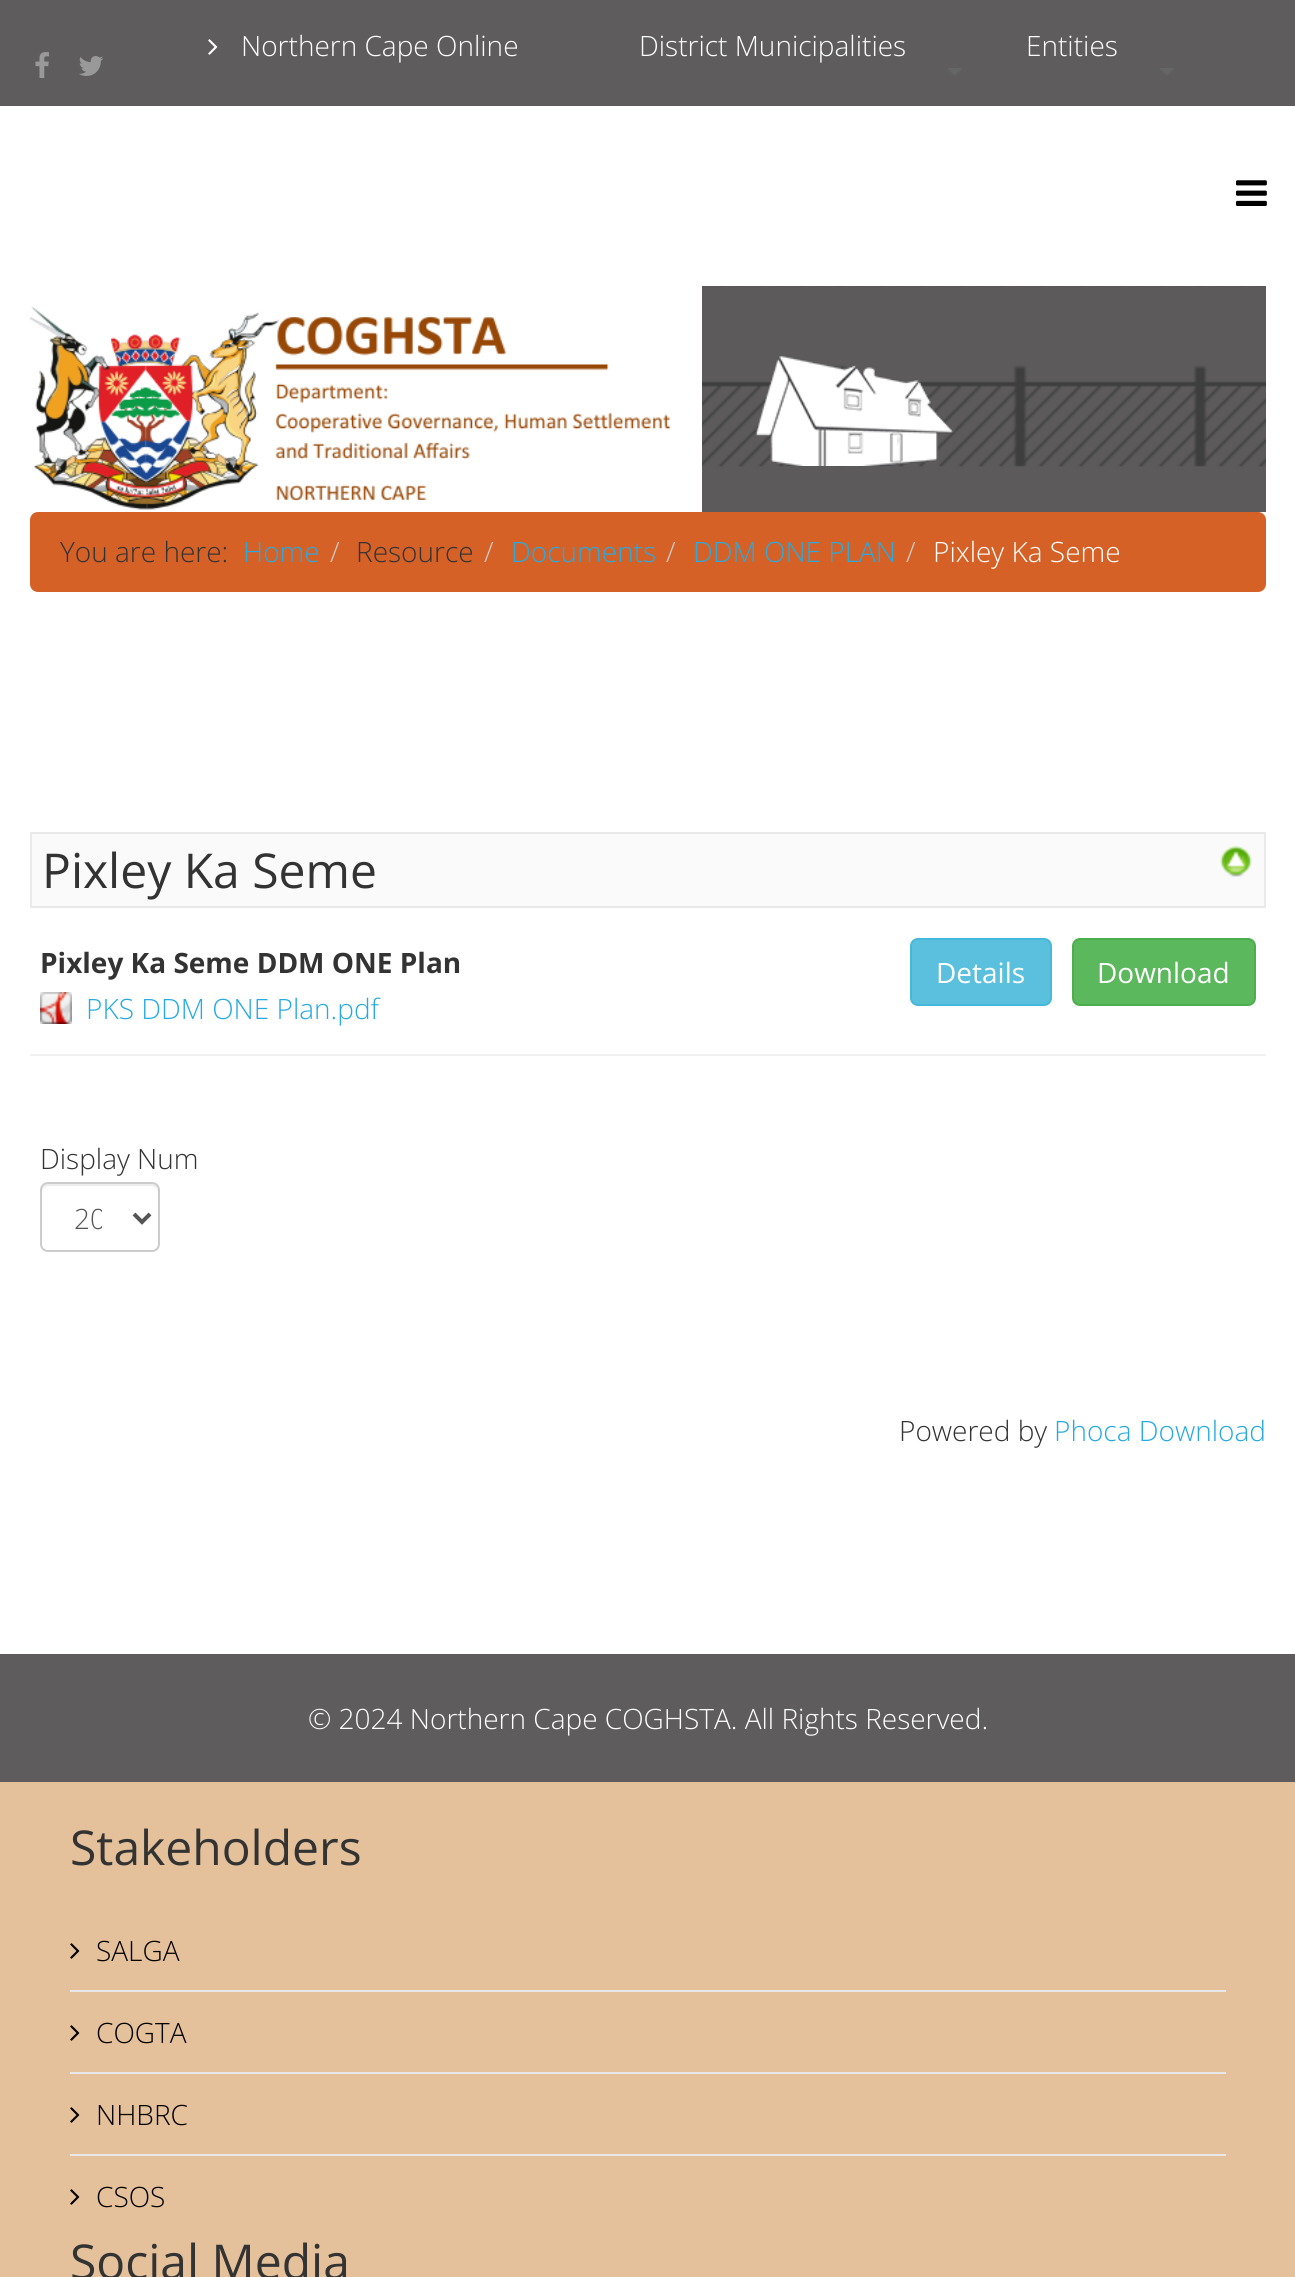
#include <cairo.h>
#include <math.h>
#include <stddef.h>


static void set_color(cairo_t *cr, unsigned color) {
    cairo_set_source_rgb(cr, (color >> 16) / 255.0, (color >> 8 & 255) / 255.0, (color & 255) / 255.0);
}

static void draw_text(cairo_t *cr, double x, double y, const char *s, const char *family, double size, int italic, int bold, unsigned color) {
    cairo_select_font_face(cr, family, italic ? CAIRO_FONT_SLANT_ITALIC : CAIRO_FONT_SLANT_NORMAL,
        bold ? CAIRO_FONT_WEIGHT_BOLD : CAIRO_FONT_WEIGHT_NORMAL);
    cairo_set_font_size(cr, size);
    set_color(cr, color);
    cairo_move_to(cr, x, y);
    cairo_show_text(cr, s);
}

static void fill_rect(cairo_t *cr, double x, double y, double w, double h, unsigned color) {
    set_color(cr, color);
    cairo_rectangle(cr, x, y, w, h);
    cairo_fill(cr);
}

static void rounded_rect(cairo_t *cr, double x, double y, double w, double h, double r) {
    cairo_new_sub_path(cr);
    cairo_arc(cr, x + w - r, y + h - r, r, 0, M_PI / 2);
    cairo_arc(cr, x + r, y + h - r, r, M_PI / 2, M_PI);
    cairo_arc(cr, x + r, y + r, r, M_PI, 1.5 * M_PI);
    cairo_arc(cr, x + w - r, y + r, r, 1.5 * M_PI, 2 * M_PI);
    cairo_close_path(cr);
}

static void draw_image(cairo_t *cr, const char *path, double x, double y, double w, double h) {
    cairo_surface_t *image = cairo_image_surface_create_from_png(path);
    cairo_save(cr);
    cairo_set_source_surface(cr, image, x, y);
    cairo_rectangle(cr, x, y, w, h);
    cairo_fill(cr);
    cairo_restore(cr);
    cairo_surface_destroy(image);
}

int main(void) {
    cairo_surface_t *surface = cairo_image_surface_create(CAIRO_FORMAT_RGB24, 1295, 2277);
    cairo_t *cr = cairo_create(surface);
    cairo_font_options_t *options = cairo_font_options_create();
    cairo_font_options_set_hint_metrics(options, CAIRO_HINT_METRICS_OFF);
    cairo_font_options_set_hint_style(options, CAIRO_HINT_STYLE_NONE);
    cairo_set_font_options(cr, options);
    cairo_set_miter_limit(cr, 4);
    set_color(cr, 0xFFFFFF);
    cairo_paint(cr);
    fill_rect(cr, 0, 0, 1295, 106, 0x5E5C5C);
    draw_image(cr, "assets/img1.png", 35, 52, 14, 26);
    draw_image(cr, "assets/img2.png", 79, 56, 24, 20);
    draw_image(cr, "assets/img3.png", 208, 39, 10, 16);
    draw_text(cr, 241, 56, "Northern Cape Online", "Open Sans Light", 28, 0, 0, 0xFFFFFF);
    draw_image(cr, "assets/img4.png", 948, 68, 14, 8);
    draw_text(cr, 639, 56, "District Municipalities", "Open Sans Light", 28, 0, 0, 0xFFFFFF);
    draw_image(cr, "assets/img4.png", 1160, 68, 14, 8);
    draw_text(cr, 1026, 56, "Entities", "Open Sans Light", 28, 0, 0, 0xFFFFFF);
    draw_image(cr, "assets/img5.png", 1236, 180, 31, 26);
    draw_image(cr, "assets/img6.png", 702, 286, 564, 226);
    draw_image(cr, "assets/img7.png", 30, 286, 672, 226);
    draw_image(cr, "assets/img8.png", 755, 356, 201, 110);
    set_color(cr, 0xD66127);
    rounded_rect(cr, 30, 512, 1236, 80, 8);
    cairo_fill(cr);
    draw_text(cr, 60, 562, "You are here:", "Open Sans Light", 28, 0, 0, 0x333333);
    draw_text(cr, 243, 562, "Home", "Open Sans Light", 28, 0, 0, 0x26AAE1);
    draw_text(cr, 330, 562, "/", "Open Sans Light", 28, 0, 0, 0xCCCCCC);
    draw_text(cr, 356, 562, "Resource", "Open Sans Light", 28, 0, 0, 0x333333);
    draw_text(cr, 484, 562, "/", "Open Sans Light", 28, 0, 0, 0xCCCCCC);
    draw_text(cr, 511, 562, "Documents", "Open Sans Light", 28, 0, 0, 0x26AAE1);
    draw_text(cr, 666, 562, "/", "Open Sans Light", 28, 0, 0, 0xCCCCCC);
    draw_text(cr, 693, 562, "DDM ONE PLAN", "Open Sans Light", 28, 0, 0, 0x26AAE1);
    draw_text(cr, 906, 562, "/", "Open Sans Light", 28, 0, 0, 0xCCCCCC);
    draw_text(cr, 933, 562, "Pixley Ka Seme", "Open Sans Light", 28, 0, 0, 0xFFFFFF);
    set_color(cr, 0xFAFAFA);
    cairo_rectangle(cr, 31, 833, 1234, 74);
    cairo_fill_preserve(cr);
    set_color(cr, 0xE9E9E9);
    cairo_stroke(cr);
    draw_text(cr, 42, 888, "Pixley Ka Seme", "Open Sans", 48, 0, 0, 0x333333);
    draw_image(cr, "assets/img9.png", 1220, 846, 32, 31);
    fill_rect(cr, 30, 1054, 1236, 2, 0xF0F0F0);
    draw_text(cr, 40, 973, "Pixley Ka Seme DDM ONE Plan", "Open Sans", 28, 0, 1, 0x333333);
    draw_image(cr, "assets/img10.png", 40, 992, 32, 32);
    draw_text(cr, 86, 1019, "PKS DDM ONE Plan.pdf", "Open Sans Light", 28, 0, 0, 0x26AAE1);
    set_color(cr, 0x5BC0DE);
    rounded_rect(cr, 911, 939, 140, 66, 7);
    cairo_fill_preserve(cr);
    set_color(cr, 0x46B8DA);
    cairo_stroke(cr);
    draw_text(cr, 936, 983, "Details", "Open Sans", 28, 0, 0, 0xFFFFFF);
    set_color(cr, 0x5CB85C);
    rounded_rect(cr, 1073, 939, 182, 66, 7);
    cairo_fill_preserve(cr);
    set_color(cr, 0x4CAE4C);
    cairo_stroke(cr);
    draw_text(cr, 1097, 983, "Download", "Open Sans", 28, 0, 0, 0xFFFFFF);
    draw_text(cr, 40, 1169, "Display Num", "Open Sans Light", 28, 0, 0, 0x333333);
    set_color(cr, 0xECECEC);
    cairo_new_path(cr);
    cairo_move_to(cr, 48, 1186);
    cairo_line_to(cr, 152, 1186);
    cairo_curve_to(cr, 155, 1186, 158, 1189, 158, 1192);
    cairo_line_to(cr, 158, 1190);
    cairo_curve_to(cr, 158, 1187, 155, 1184, 152, 1184);
    cairo_line_to(cr, 48, 1184);
    cairo_curve_to(cr, 45, 1184, 42, 1187, 42, 1190);
    cairo_line_to(cr, 42, 1192);
    cairo_curve_to(cr, 42, 1189, 45, 1186, 48, 1186);
    cairo_close_path(cr);
    cairo_fill(cr);
    rounded_rect(cr, 41, 1183, 118, 68, 7);
    set_color(cr, 0xCCCCCC);
    cairo_stroke(cr);
    cairo_new_path(cr);
    cairo_move_to(cr, 134, 1214);
    cairo_line_to(cr, 142, 1222);
    cairo_line_to(cr, 150, 1214);
    set_color(cr, 0x555555);
    cairo_set_line_width(cr, 4);
    cairo_stroke(cr);
    cairo_save(cr);
    cairo_rectangle(cr, 74, 1196, 28, 42);
    cairo_clip(cr);
    draw_text(cr, 74, 1229, "20", "Open Sans Light", 28, 0, 0, 0x555555);
    cairo_restore(cr);
    draw_text(cr, 899, 1441, "Powered by", "Open Sans Light", 28, 0, 0, 0x333333);
    draw_text(cr, 1054, 1441, "Phoca Download", "Open Sans Light", 28, 0, 0, 0x26AAE1);
    fill_rect(cr, 0, 1654, 1295, 128, 0x5E5C5C);
    draw_text(cr, 308, 1729, "© 2024 Northern Cape COGHSTA. All Rights Reserved.", "Open Sans Light", 28, 0, 0, 0xFFFFFF);
    fill_rect(cr, 0, 1782, 1295, 495, 0xE5C19B);
    draw_text(cr, 70, 1865, "Stakeholders", "Open Sans", 48, 0, 0, 0x333333);
    fill_rect(cr, 70, 1990, 1156, 2, 0xE8E8E8);
    draw_image(cr, "assets/img11.png", 70, 1943, 10, 16);
    draw_text(cr, 96, 1961, "SALGA", "Open Sans Light", 28, 0, 0, 0x000000);
    fill_rect(cr, 70, 2072, 1156, 2, 0xE8E8E8);
    draw_image(cr, "assets/img11.png", 70, 2025, 10, 16);
    draw_text(cr, 96, 2043, "COGTA", "Open Sans Light", 28, 0, 0, 0x000000);
    fill_rect(cr, 70, 2154, 1156, 2, 0xE8E8E8);
    draw_image(cr, "assets/img11.png", 70, 2107, 10, 16);
    draw_text(cr, 96, 2125, "NHBRC", "Open Sans Light", 28, 0, 0, 0x000000);
    draw_image(cr, "assets/img11.png", 70, 2189, 10, 16);
    draw_text(cr, 96, 2207, "CSOS", "Open Sans Light", 28, 0, 0, 0x000000);
    draw_text(cr, 70, 2279, "Social Media", "Open Sans", 48, 0, 0, 0x333333);
    cairo_surface_write_to_png(surface, "output.png");
    cairo_font_options_destroy(options);
    cairo_destroy(cr);
    cairo_surface_destroy(surface);
    return 0;
}
